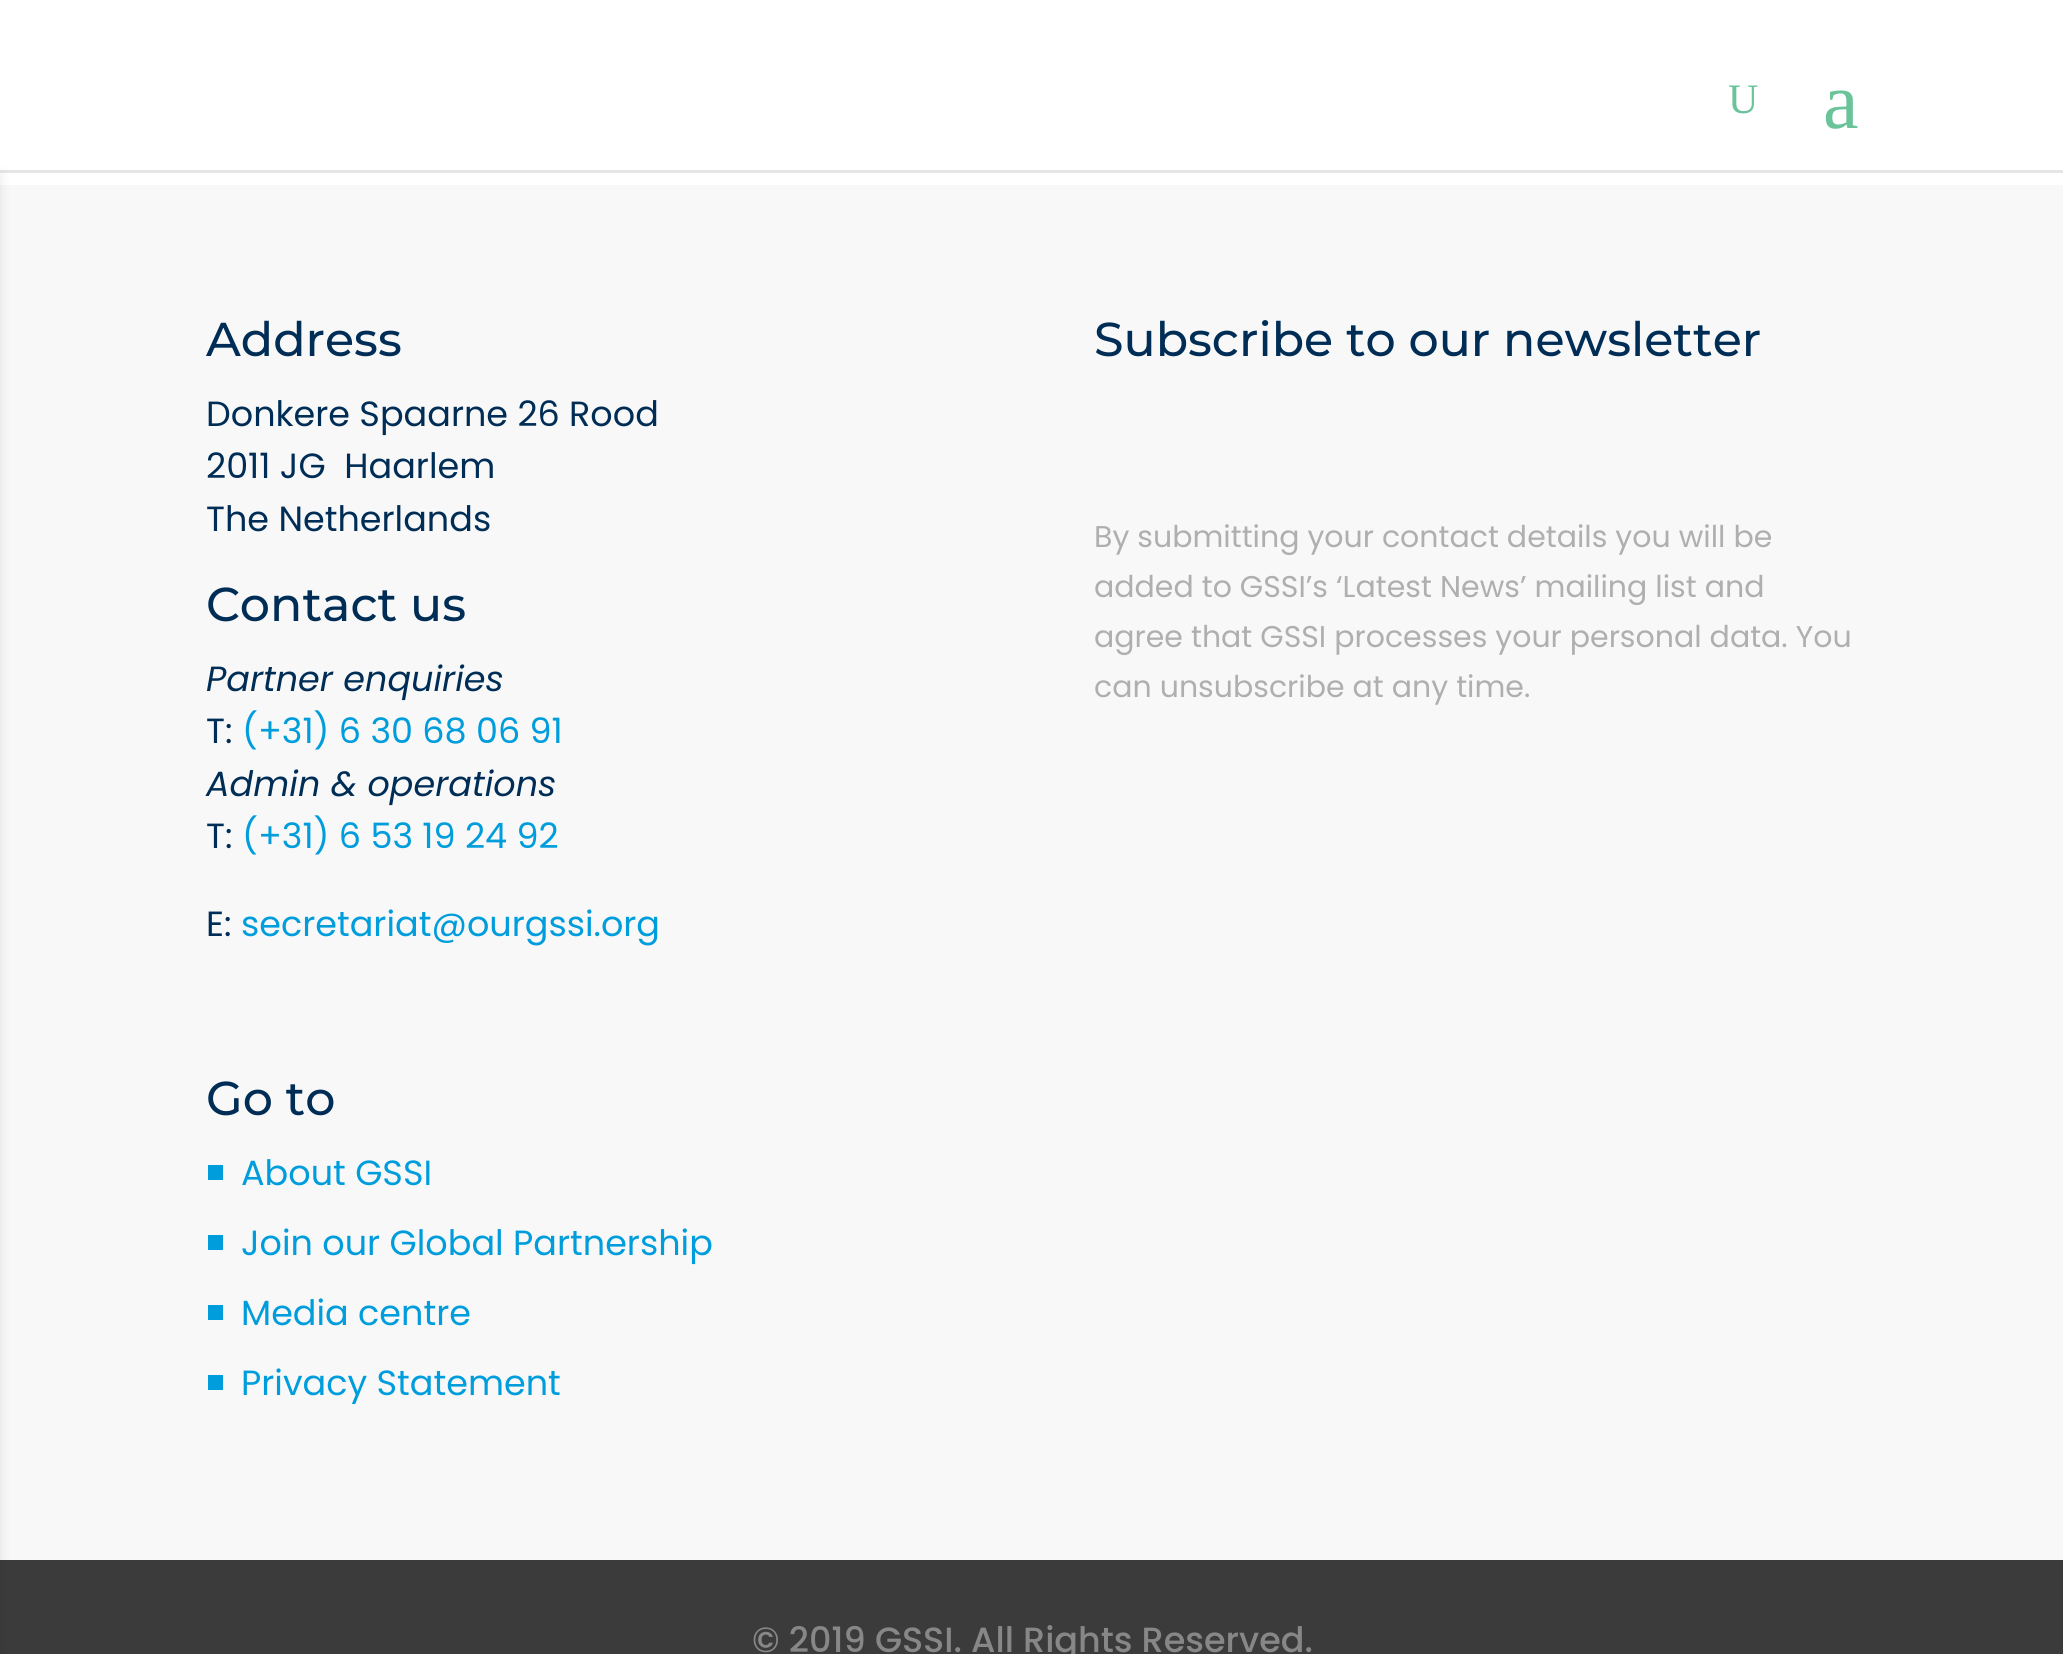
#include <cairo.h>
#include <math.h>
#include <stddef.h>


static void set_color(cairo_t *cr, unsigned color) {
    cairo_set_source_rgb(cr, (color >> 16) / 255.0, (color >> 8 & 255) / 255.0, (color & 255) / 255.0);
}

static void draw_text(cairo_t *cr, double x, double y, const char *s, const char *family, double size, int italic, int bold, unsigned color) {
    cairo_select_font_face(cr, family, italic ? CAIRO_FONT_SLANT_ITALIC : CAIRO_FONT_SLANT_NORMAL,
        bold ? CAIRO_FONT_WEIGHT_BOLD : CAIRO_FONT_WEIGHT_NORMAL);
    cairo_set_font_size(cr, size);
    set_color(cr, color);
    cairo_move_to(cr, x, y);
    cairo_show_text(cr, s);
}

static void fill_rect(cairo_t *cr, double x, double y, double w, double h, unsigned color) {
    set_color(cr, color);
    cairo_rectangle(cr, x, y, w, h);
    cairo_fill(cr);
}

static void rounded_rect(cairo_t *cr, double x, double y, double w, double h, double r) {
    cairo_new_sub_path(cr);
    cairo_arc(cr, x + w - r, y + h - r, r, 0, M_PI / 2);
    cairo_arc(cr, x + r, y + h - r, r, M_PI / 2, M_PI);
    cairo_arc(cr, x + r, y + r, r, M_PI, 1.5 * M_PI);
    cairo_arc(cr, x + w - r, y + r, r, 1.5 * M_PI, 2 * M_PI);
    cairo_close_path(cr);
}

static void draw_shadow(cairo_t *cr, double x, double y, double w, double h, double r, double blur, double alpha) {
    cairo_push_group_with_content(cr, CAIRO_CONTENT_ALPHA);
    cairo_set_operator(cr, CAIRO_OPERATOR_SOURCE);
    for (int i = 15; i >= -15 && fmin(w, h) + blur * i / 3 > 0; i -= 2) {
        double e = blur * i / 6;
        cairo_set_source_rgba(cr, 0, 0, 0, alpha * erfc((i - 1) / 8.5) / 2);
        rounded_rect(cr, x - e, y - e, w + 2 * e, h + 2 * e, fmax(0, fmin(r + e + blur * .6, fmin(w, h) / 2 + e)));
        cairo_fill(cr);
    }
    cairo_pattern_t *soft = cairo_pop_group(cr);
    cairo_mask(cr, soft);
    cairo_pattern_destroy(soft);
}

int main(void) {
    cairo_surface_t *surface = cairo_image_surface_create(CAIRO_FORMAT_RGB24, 2063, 1654);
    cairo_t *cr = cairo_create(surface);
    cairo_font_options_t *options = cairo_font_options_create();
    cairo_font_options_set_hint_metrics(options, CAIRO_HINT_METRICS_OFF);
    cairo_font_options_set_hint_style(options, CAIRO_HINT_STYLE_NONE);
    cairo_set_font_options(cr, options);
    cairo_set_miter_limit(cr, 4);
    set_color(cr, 0xFFFFFF);
    cairo_paint(cr);
    fill_rect(cr, 0, 170, 2063, 3, 0xE6E6E6);
    draw_text(cr, 1728, 113, "U", "Liberation Serif", 42, 0, 0, 0x6AC399);
    draw_text(cr, 1823, 128, "a", "Liberation Serif", 80, 0, 0, 0x6AC399);
    fill_rect(cr, 0, 185, 2063, 1375, 0xF8F8F8);
    fill_rect(cr, 0, 1560, 2063, 94, 0x3B3B3B);
    set_color(cr, 0x000000);
    draw_shadow(cr, -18, 175, 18, 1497, 0, 6, 0.1);
    draw_text(cr, 206, 356, "Address", "Montserrat Thin", 47.5, 0, 0, 0x002D56);
    draw_text(cr, 206, 426, "Donkere Spaarne 26 Rood", "Poppins", 35, 0, 0, 0x002D56);
    draw_text(cr, 206, 478, "2011 JG  Haarlem", "Poppins", 35, 0, 0, 0x002D56);
    draw_text(cr, 206, 531, "The Netherlands", "Poppins", 35, 0, 0, 0x002D56);
    draw_text(cr, 206, 621, "Contact us", "Montserrat Thin", 47.5, 0, 0, 0x002D56);
    draw_text(cr, 206, 691, "Partner enquiries", "Poppins", 35, 1, 0, 0x002D56);
    draw_text(cr, 206, 743, "T:", "Poppins", 35, 0, 0, 0x002D56);
    draw_text(cr, 242, 743, "(+31) 6 30 68 06 91", "Poppins", 35, 0, 0, 0x009DDC);
    draw_text(cr, 206, 796, "Admin & operations", "Poppins", 35, 1, 0, 0x002D56);
    draw_text(cr, 206, 848, "T:", "Poppins", 35, 0, 0, 0x002D56);
    draw_text(cr, 242, 848, "(+31) 6 53 19 24 92", "Poppins", 35, 0, 0, 0x009DDC);
    draw_text(cr, 206, 936, "E:", "Poppins", 35, 0, 0, 0x002D56);
    draw_text(cr, 241, 936, "secretariat@ourgssi.org", "Poppins", 35, 0, 0, 0x009DDC);
    draw_text(cr, 1094, 356, "Subscribe to our newsletter", "Montserrat Thin", 47.5, 0, 0, 0x002D56);
    draw_text(cr, 1094, 547, "By submitting your contact details you will be", "Poppins", 30, 0, 0, 0xAFAFAF);
    draw_text(cr, 1094, 597, "added to GSSI’s ‘Latest News’ mailing list and", "Poppins", 30, 0, 0, 0xAFAFAF);
    draw_text(cr, 1094, 647, "agree that GSSI processes your personal data. You", "Poppins", 30, 0, 0, 0xAFAFAF);
    draw_text(cr, 1094, 697, "can unsubscribe at any time.", "Poppins", 30, 0, 0, 0xAFAFAF);
    draw_text(cr, 206, 1115, "Go to", "Montserrat Thin", 47.5, 0, 0, 0x002D56);
    fill_rect(cr, 208, 1165, 15, 15, 0x009DDC);
    draw_text(cr, 241, 1185, "About GSSI", "Poppins", 35, 0, 0, 0x009DDC);
    fill_rect(cr, 208, 1235, 15, 15, 0x009DDC);
    draw_text(cr, 241, 1255, "Join our Global Partnership", "Poppins", 35, 0, 0, 0x009DDC);
    fill_rect(cr, 208, 1305, 15, 15, 0x009DDC);
    draw_text(cr, 241, 1325, "Media centre", "Poppins", 35, 0, 0, 0x009DDC);
    fill_rect(cr, 208, 1375, 15, 15, 0x009DDC);
    draw_text(cr, 241, 1395, "Privacy Statement", "Poppins", 35, 0, 0, 0x009DDC);
    draw_text(cr, 752, 1652, "© 2019 GSSI. All Rights Reserved.", "Poppins Medium", 35, 0, 0, 0x878787);
    cairo_surface_write_to_png(surface, "output.png");
    cairo_font_options_destroy(options);
    cairo_destroy(cr);
    cairo_surface_destroy(surface);
    return 0;
}
